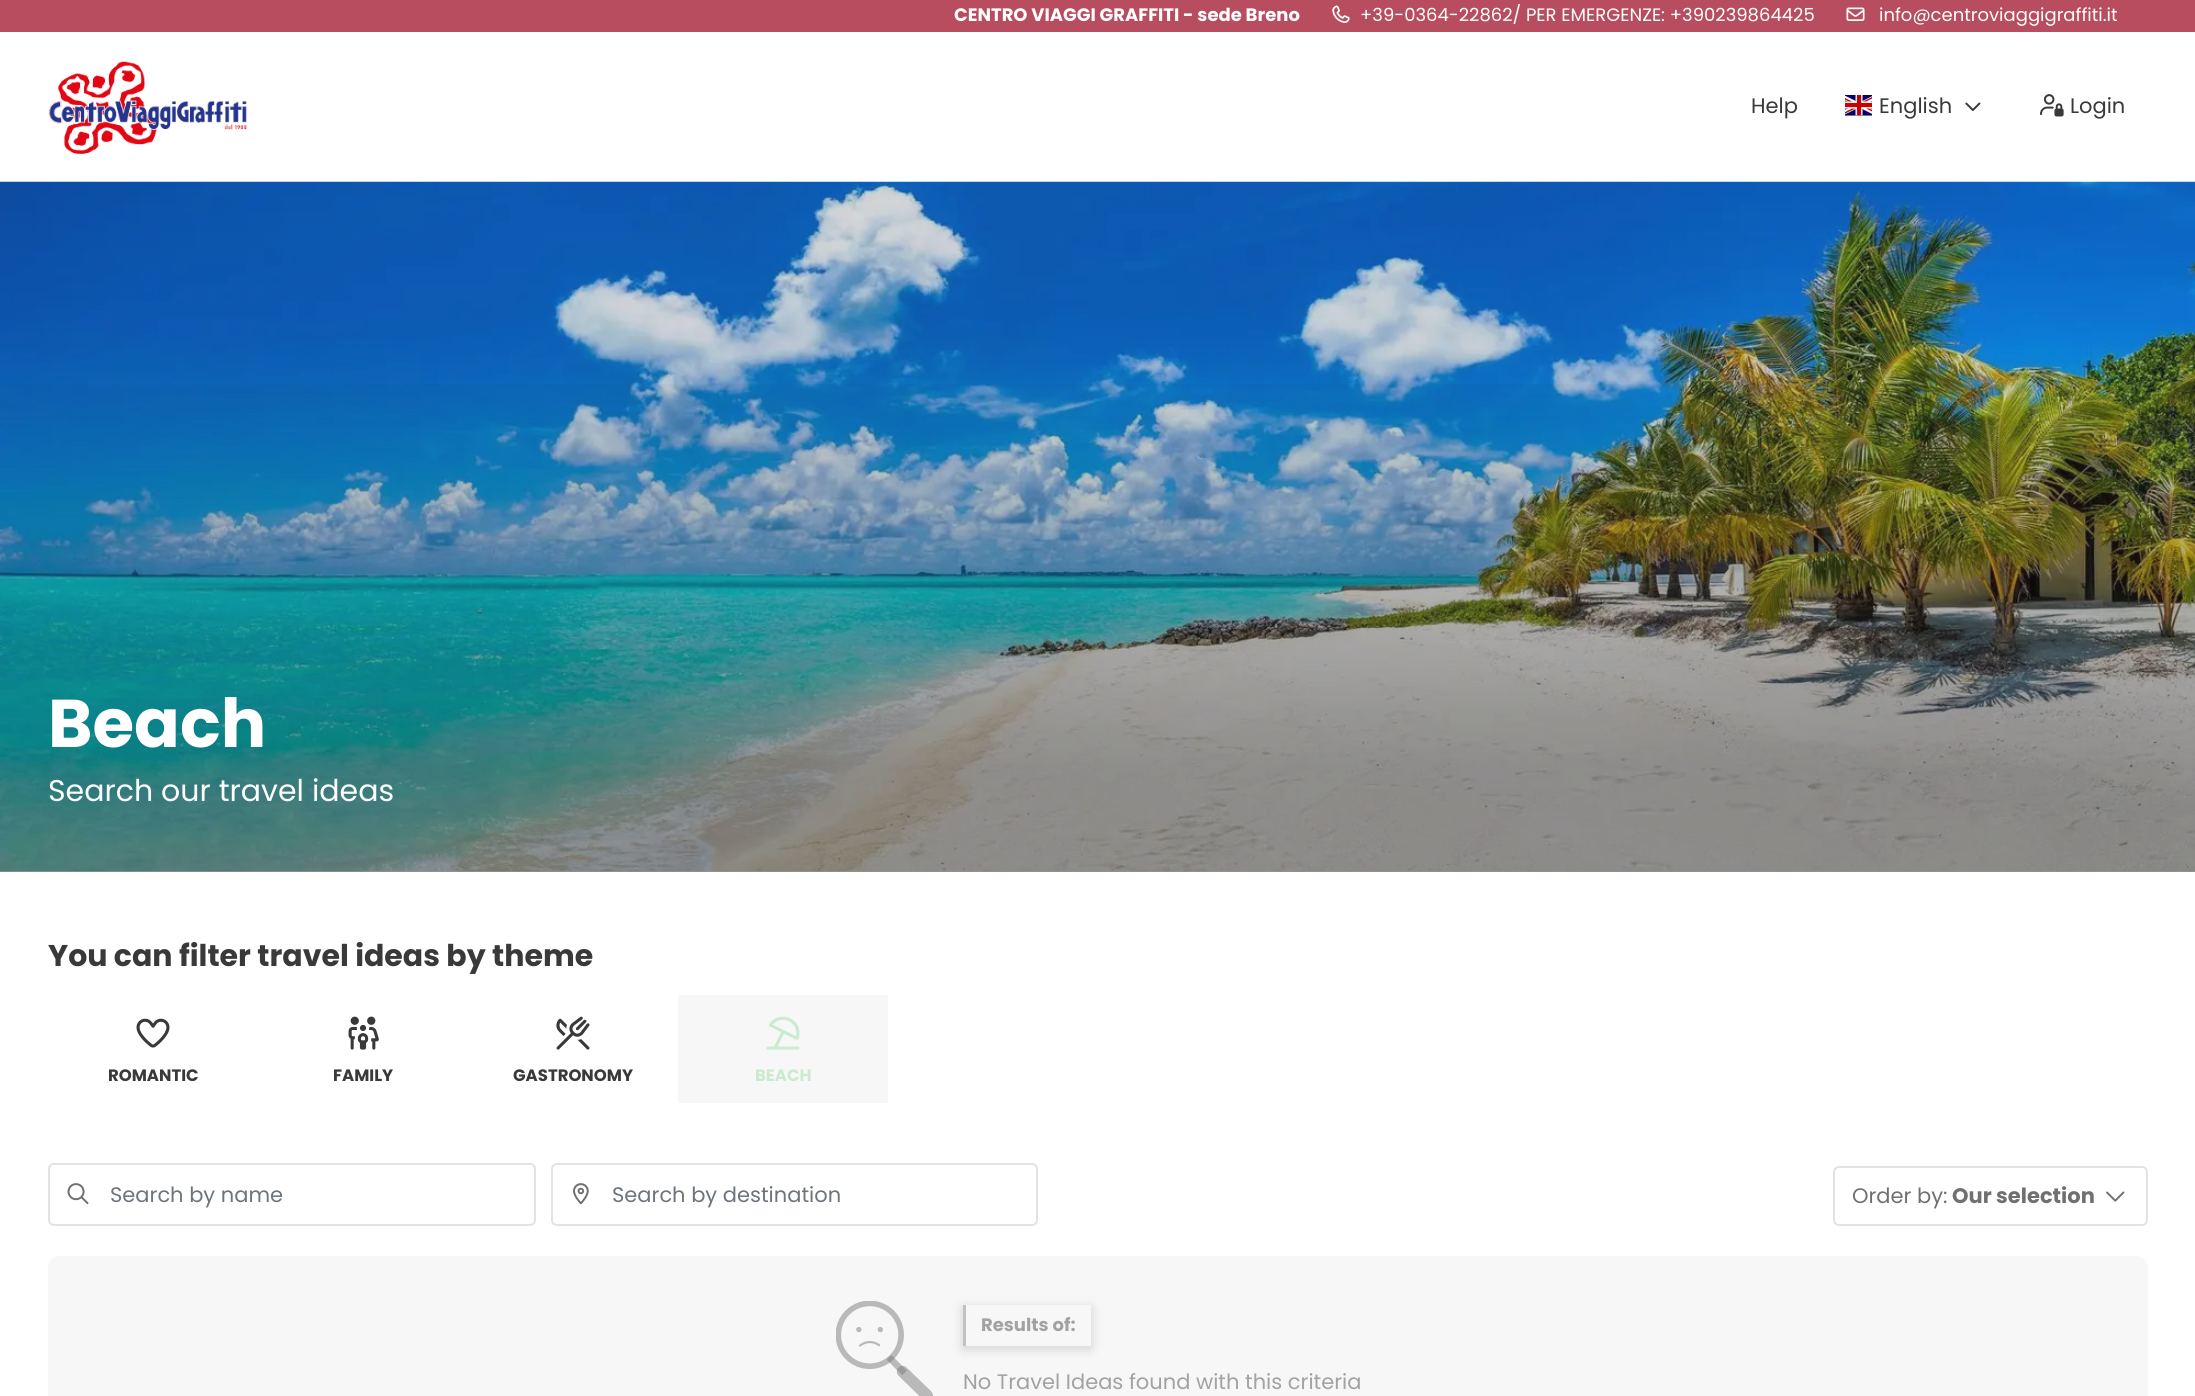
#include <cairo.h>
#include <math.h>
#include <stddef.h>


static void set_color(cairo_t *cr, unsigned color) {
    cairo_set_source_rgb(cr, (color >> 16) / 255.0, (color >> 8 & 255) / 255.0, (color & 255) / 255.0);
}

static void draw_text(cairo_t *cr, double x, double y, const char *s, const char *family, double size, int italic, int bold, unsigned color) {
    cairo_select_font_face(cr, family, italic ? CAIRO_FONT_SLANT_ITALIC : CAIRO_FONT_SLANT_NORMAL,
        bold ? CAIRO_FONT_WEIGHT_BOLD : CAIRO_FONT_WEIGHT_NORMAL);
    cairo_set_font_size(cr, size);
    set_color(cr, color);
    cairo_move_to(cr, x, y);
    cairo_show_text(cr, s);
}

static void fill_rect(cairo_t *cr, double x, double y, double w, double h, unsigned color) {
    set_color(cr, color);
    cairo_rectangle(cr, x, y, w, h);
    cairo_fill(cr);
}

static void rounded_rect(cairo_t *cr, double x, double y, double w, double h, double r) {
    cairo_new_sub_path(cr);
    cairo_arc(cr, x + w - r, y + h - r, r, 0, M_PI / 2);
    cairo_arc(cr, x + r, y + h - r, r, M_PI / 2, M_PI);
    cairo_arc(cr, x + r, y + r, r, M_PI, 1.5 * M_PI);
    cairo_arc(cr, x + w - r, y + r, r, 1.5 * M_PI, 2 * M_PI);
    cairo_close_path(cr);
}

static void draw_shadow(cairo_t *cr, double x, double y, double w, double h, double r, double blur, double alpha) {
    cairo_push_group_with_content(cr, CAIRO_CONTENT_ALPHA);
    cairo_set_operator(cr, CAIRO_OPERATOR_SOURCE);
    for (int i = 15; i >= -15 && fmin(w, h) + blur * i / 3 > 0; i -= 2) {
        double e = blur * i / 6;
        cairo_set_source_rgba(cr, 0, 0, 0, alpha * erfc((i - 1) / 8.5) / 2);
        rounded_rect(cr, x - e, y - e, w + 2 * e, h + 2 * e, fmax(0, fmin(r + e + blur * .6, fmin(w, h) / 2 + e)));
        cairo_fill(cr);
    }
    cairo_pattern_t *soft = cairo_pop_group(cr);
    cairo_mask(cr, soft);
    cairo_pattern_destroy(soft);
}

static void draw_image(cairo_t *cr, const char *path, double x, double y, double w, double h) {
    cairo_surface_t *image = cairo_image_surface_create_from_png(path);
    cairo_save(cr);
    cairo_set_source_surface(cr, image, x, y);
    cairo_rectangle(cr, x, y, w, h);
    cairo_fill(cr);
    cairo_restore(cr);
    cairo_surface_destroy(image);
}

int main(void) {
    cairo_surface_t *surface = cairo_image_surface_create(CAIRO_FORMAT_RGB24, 2195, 1396);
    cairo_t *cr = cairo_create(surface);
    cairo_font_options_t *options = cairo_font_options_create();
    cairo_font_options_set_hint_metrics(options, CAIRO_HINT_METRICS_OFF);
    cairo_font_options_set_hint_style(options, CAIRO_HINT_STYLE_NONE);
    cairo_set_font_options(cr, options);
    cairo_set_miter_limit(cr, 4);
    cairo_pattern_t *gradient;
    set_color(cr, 0xFFFFFF);
    cairo_paint(cr);
    fill_rect(cr, 0, 0, 2195, 32, 0xB84D5F);
    draw_text(cr, 954, 21, "CENTRO VIAGGI GRAFFITI - sede Breno", "Poppins", 18, 0, 1, 0xFFFFFF);
    draw_image(cr, "assets/img1.png", 1332, 5, 18, 18);
    draw_text(cr, 1360, 21, "+39-0364-22862/ PER EMERGENZE: +390239864425", "Poppins", 18, 0, 0, 0xFFFFFF);
    draw_image(cr, "assets/img2.png", 1846, 7, 19, 14);
    draw_text(cr, 1879, 21, "info@centroviaggigraffiti.it", "Poppins", 18, 0, 0, 0xFFFFFF);
    draw_image(cr, "assets/img3.png", 48, 61, 199, 94);
    draw_text(cr, 1751, 113, "Help", "Poppins", 21, 0, 0, 0x393939);
    draw_image(cr, "assets/img4.png", 1845, 95, 27, 21);
    draw_text(cr, 1879, 113, "English", "Poppins", 21, 0, 0, 0x393939);
    draw_image(cr, "assets/img5.png", 1965, 102, 16, 9);
    draw_image(cr, "assets/img6.png", 2040, 94, 24, 23);
    draw_text(cr, 2070, 113, "Login", "Poppins", 21, 0, 0, 0x393939);
    fill_rect(cr, 0, 871, 2195, 1, 0xD1D1D1);
    draw_image(cr, "assets/img7.png", 0, 181, 2195, 691);
    gradient = cairo_pattern_create_linear(1098, 181, 1098, 872);
    cairo_pattern_add_color_stop_rgba(gradient, 0.25, 0, 0, 0, 0);
    cairo_pattern_add_color_stop_rgba(gradient, 0.85, 0, 0, 0, 0.3);
    cairo_set_source(cr, gradient);
    cairo_pattern_destroy(gradient);
    cairo_rectangle(cr, 0, 384, 2195, 488);
    cairo_fill(cr);
    draw_text(cr, 48, 747, "Beach", "Poppins", 67.5, 0, 1, 0xFFFFFF);
    draw_text(cr, 48, 801, "Search our travel ideas", "Poppins", 30, 0, 0, 0xFFFFFF);
    draw_text(cr, 48, 966, "You can filter travel ideas by theme", "Poppins", 30, 0, 1, 0x393939);
    draw_image(cr, "assets/img8.png", 136, 1018, 34, 30);
    draw_text(cr, 108, 1081, "ROMANTIC", "Poppins", 16.5, 0, 1, 0x393939);
    draw_image(cr, "assets/img9.png", 348, 1016, 31, 34);
    draw_text(cr, 333, 1081, "FAMILY", "Poppins", 16.5, 0, 1, 0x393939);
    draw_image(cr, "assets/img10.png", 556, 1016, 34, 34);
    draw_text(cr, 513, 1081, "GASTRONOMY", "Poppins", 16.5, 0, 1, 0x393939);
    fill_rect(cr, 678, 995, 210, 108, 0xF7F7F7);
    draw_image(cr, "assets/img11.png", 766, 1016, 34, 34);
    draw_text(cr, 755, 1081, "BEACH", "Poppins", 16.5, 0, 1, 0xCAEBCF);
    rounded_rect(cr, 49, 1164, 486, 61, 5);
    set_color(cr, 0xE3E3E3);
    cairo_stroke(cr);
    draw_image(cr, "assets/img12.png", 67, 1183, 22, 22);
    draw_text(cr, 110, 1202, "Search by name", "Poppins", 21, 0, 0, 0x6C757D);
    rounded_rect(cr, 552, 1164, 485, 61, 5);
    set_color(cr, 0xE3E3E3);
    cairo_stroke(cr);
    draw_image(cr, "assets/img13.png", 573, 1183, 16, 22);
    draw_text(cr, 612, 1202, "Search by destination", "Poppins", 21, 0, 0, 0x6C757D);
    rounded_rect(cr, 1834, 1167, 313, 58, 5);
    set_color(cr, 0xE3E3E3);
    cairo_stroke(cr);
    draw_text(cr, 1852, 1203, "Order by:", "Poppins", 21, 0, 0, 0x707070);
    draw_text(cr, 1952, 1203, "Our selection", "Poppins", 21, 0, 1, 0x707070);
    draw_image(cr, "assets/img14.png", 2106, 1191, 19, 11);
    set_color(cr, 0xF7F7F7);
    rounded_rect(cr, 48, 1256, 2100, 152, 12);
    cairo_fill(cr);
    draw_image(cr, "assets/img15.png", 836, 1301, 97, 95);
    cairo_save(cr);
    cairo_set_fill_rule(cr, CAIRO_FILL_RULE_EVEN_ODD);
    cairo_new_path(cr);
    cairo_move_to(cr, 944, 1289);
    cairo_line_to(cr, 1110, 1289);
    cairo_line_to(cr, 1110, 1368);
    cairo_line_to(cr, 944, 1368);
    cairo_close_path(cr);
    cairo_move_to(cr, 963, 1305);
    cairo_line_to(cr, 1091, 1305);
    cairo_line_to(cr, 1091, 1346);
    cairo_line_to(cr, 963, 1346);
    cairo_close_path(cr);
    cairo_clip(cr);
    set_color(cr, 0x000000);
    draw_shadow(cr, 963, 1308, 128, 41, 0, 6, 0.15);
    cairo_restore(cr);
    fill_rect(cr, 963, 1305, 3, 41, 0xC2C2C2);
    draw_text(cr, 981, 1331, "Results of:", "Poppins", 18, 0, 1, 0xA2A2A2);
    draw_text(cr, 963, 1389, "No Travel Ideas found with this criteria", "Poppins", 21, 0, 0, 0xA2A2A2);
    cairo_surface_write_to_png(surface, "output.png");
    cairo_font_options_destroy(options);
    cairo_destroy(cr);
    cairo_surface_destroy(surface);
    return 0;
}
